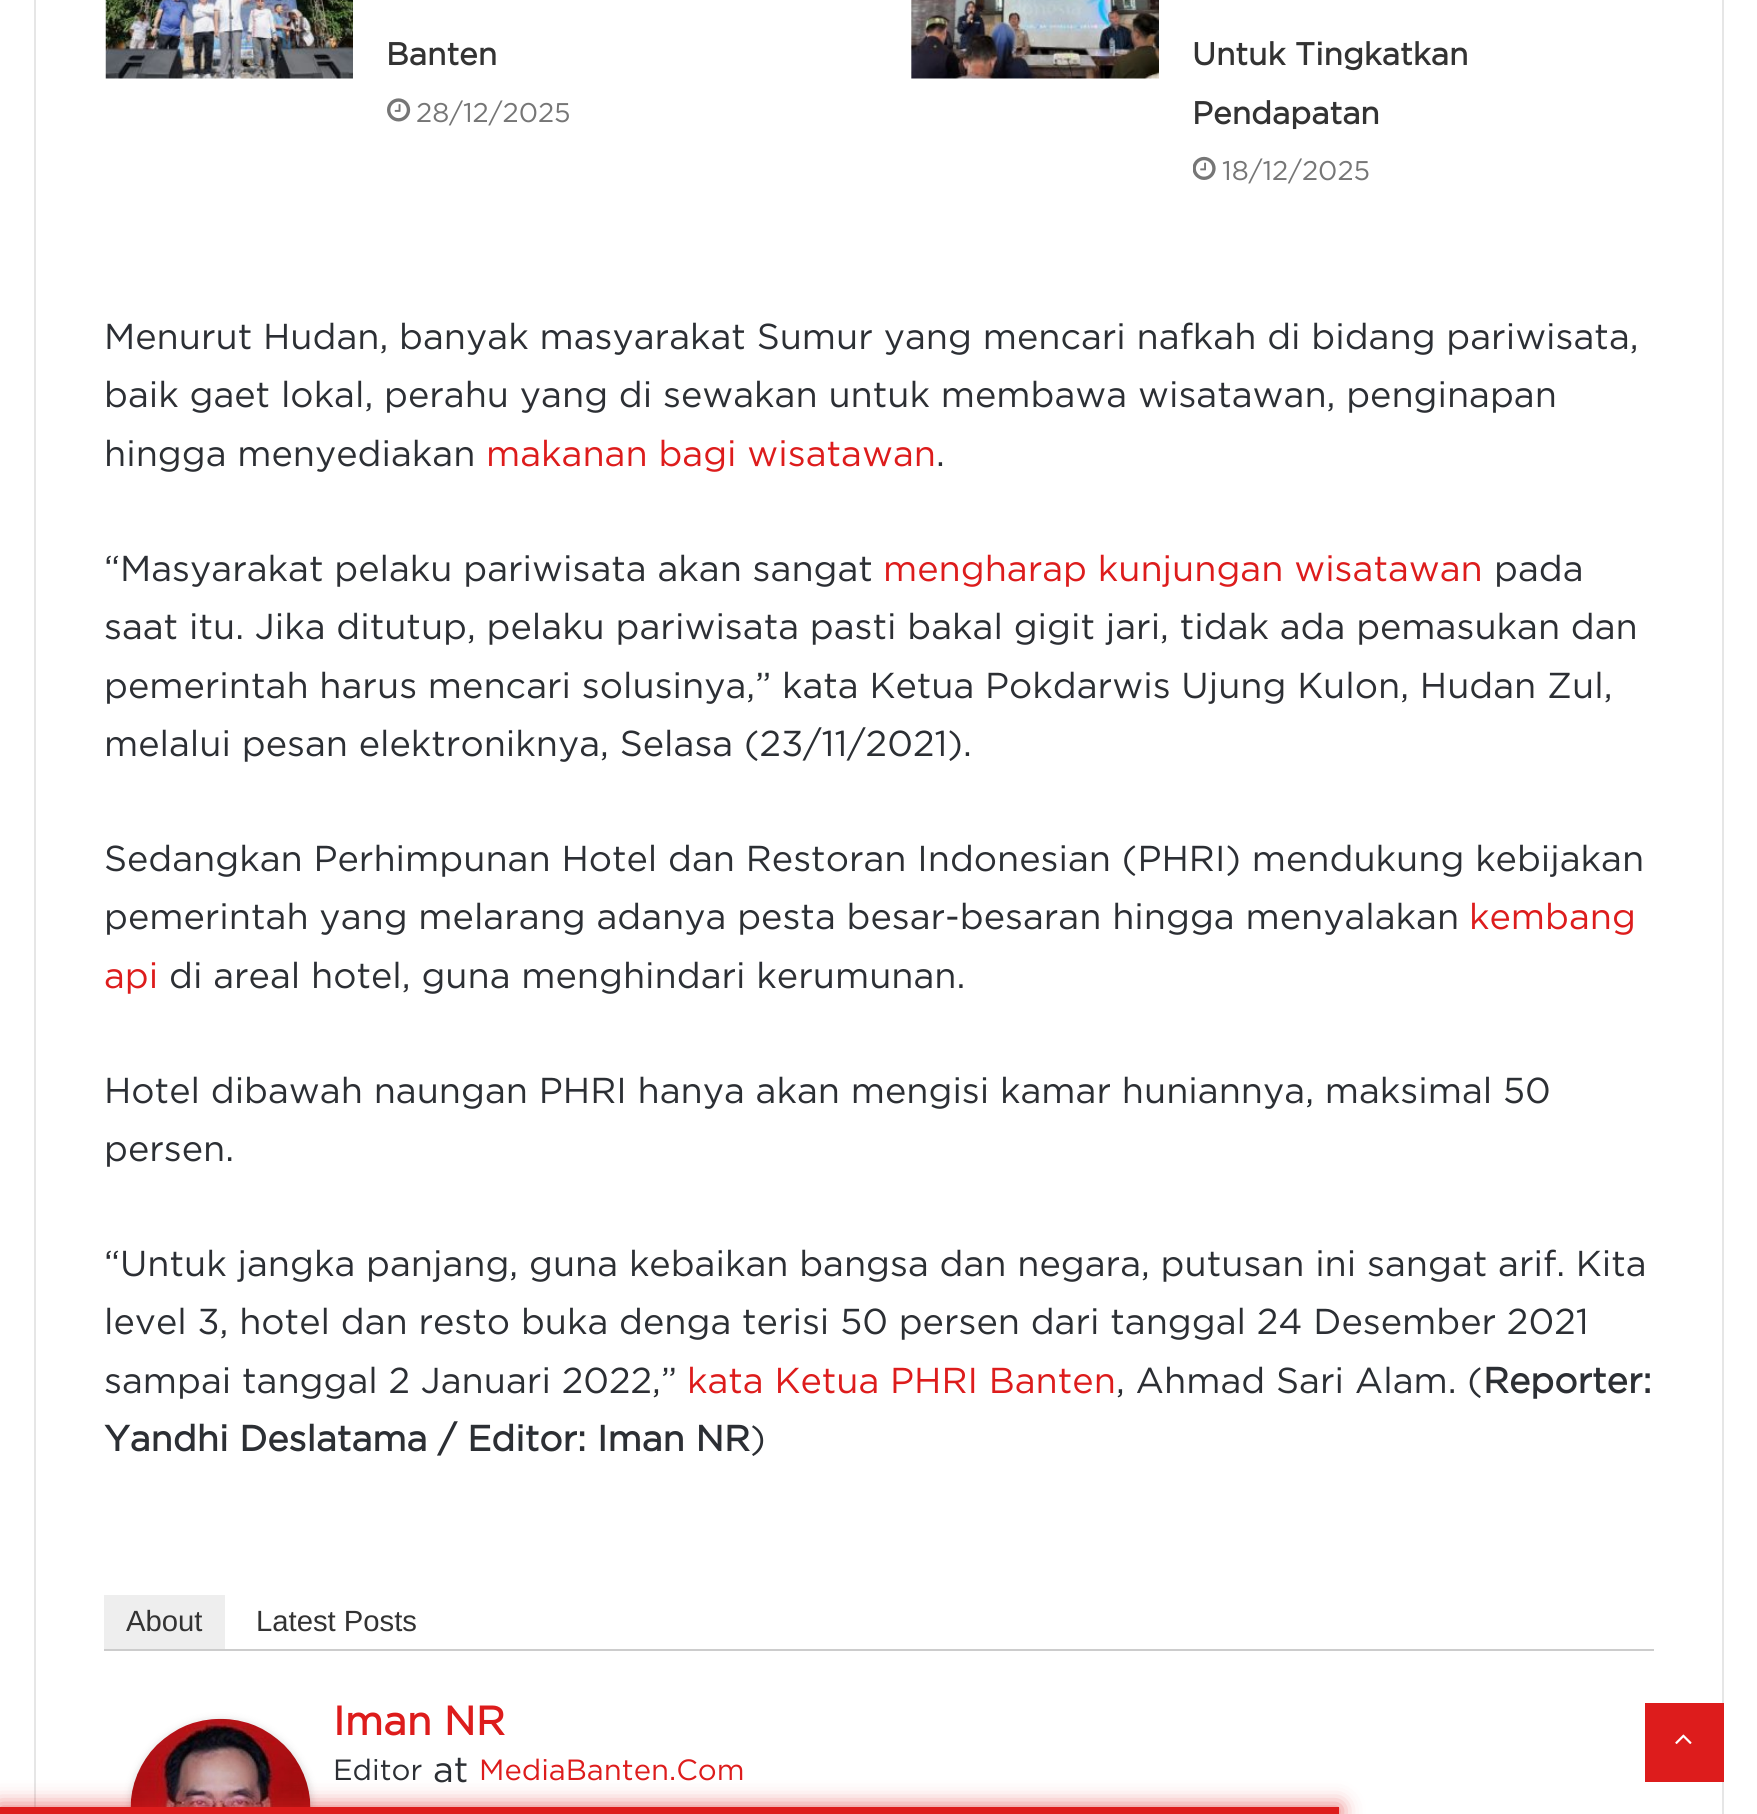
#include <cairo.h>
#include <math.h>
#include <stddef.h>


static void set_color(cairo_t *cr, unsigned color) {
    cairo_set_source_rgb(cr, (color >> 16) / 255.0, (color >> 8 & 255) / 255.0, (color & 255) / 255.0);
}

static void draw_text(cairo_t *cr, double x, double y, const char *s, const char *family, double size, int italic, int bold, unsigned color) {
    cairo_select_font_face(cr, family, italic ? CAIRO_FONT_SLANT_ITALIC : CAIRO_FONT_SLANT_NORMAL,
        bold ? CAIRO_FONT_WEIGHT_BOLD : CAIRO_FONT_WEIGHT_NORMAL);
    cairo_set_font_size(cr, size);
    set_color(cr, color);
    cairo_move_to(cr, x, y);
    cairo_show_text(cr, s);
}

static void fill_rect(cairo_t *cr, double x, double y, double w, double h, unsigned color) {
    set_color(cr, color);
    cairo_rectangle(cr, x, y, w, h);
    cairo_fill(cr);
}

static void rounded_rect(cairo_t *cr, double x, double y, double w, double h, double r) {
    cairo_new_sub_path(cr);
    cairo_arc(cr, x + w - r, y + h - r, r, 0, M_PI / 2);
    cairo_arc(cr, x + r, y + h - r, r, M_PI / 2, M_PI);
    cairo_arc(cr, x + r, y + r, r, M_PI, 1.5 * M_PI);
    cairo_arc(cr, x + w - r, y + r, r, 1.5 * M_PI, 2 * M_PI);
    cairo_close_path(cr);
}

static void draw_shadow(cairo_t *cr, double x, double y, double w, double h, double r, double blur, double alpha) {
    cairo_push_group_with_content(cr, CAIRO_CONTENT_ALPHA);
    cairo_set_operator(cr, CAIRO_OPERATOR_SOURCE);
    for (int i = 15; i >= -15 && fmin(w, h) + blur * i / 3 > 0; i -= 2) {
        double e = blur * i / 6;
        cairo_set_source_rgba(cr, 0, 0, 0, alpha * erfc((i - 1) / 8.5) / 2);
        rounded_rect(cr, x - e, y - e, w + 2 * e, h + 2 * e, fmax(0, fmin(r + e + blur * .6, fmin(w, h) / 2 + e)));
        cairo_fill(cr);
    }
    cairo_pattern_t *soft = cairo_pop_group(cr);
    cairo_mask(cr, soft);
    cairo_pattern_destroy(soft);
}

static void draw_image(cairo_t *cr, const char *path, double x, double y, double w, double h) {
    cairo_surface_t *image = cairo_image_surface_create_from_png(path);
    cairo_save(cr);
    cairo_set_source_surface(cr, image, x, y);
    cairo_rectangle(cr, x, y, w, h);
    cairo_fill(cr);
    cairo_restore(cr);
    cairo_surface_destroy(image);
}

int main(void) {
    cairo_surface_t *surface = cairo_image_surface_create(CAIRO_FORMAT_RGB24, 1757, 1814);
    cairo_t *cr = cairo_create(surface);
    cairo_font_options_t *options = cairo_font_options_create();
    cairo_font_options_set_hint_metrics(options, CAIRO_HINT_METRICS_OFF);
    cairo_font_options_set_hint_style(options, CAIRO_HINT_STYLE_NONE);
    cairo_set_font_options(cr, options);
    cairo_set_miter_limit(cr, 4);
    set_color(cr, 0xFFFFFF);
    cairo_paint(cr);
    cairo_rectangle(cr, 35, -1, 1688, 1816);
    set_color(cr, 0xE6E6E6);
    cairo_stroke(cr);
    draw_image(cr, "assets/img1.png", 105, 0, 248, 79);
    draw_text(cr, 386, 65, "Banten", "Gotham", 31.5, 0, 1, 0x333333);
    draw_image(cr, "assets/img2.png", 387, 98, 24, 24);
    draw_text(cr, 416, 122, "28/12/2025", "Gotham", 27, 0, 0, 0x767676);
    draw_image(cr, "assets/img3.png", 911, 0, 248, 79);
    draw_text(cr, 1192, 65, "Untuk Tingkatkan", "Gotham", 31.5, 0, 1, 0x333333);
    draw_text(cr, 1192, 124, "Pendapatan", "Gotham", 31.5, 0, 1, 0x333333);
    draw_image(cr, "assets/img4.png", 1193, 156, 23, 24);
    draw_text(cr, 1222, 180, "18/12/2025", "Gotham", 27, 0, 0, 0x767676);
    draw_text(cr, 104, 349, "Menurut Hudan, banyak masyarakat Sumur yang mencari nafkah di bidang pariwisata,", "Gotham", 36, 0, 0, 0x2C2F34);
    draw_text(cr, 104, 407, "baik gaet lokal, perahu yang di sewakan untuk membawa wisatawan, penginapan", "Gotham", 36, 0, 0, 0x2C2F34);
    draw_text(cr, 104, 466, "hingga menyediakan", "Gotham", 36, 0, 0, 0x2C2F34);
    draw_text(cr, 486, 466, "makanan bagi wisatawan", "Gotham", 36, 0, 0, 0xDD1C1C);
    draw_text(cr, 936, 466, ".", "Gotham", 36, 0, 0, 0x2C2F34);
    draw_text(cr, 104, 581, "“Masyarakat pelaku pariwisata akan sangat", "Gotham", 36, 0, 0, 0x2C2F34);
    draw_text(cr, 883, 581, "mengharap kunjungan wisatawan", "Gotham", 36, 0, 0, 0xDD1C1C);
    draw_text(cr, 1494, 581, "pada", "Gotham", 36, 0, 0, 0x2C2F34);
    draw_text(cr, 104, 639, "saat itu. Jika ditutup, pelaku pariwisata pasti bakal gigit jari, tidak ada pemasukan dan", "Gotham", 36, 0, 0, 0x2C2F34);
    draw_text(cr, 104, 698, "pemerintah harus mencari solusinya,” kata Ketua Pokdarwis Ujung Kulon, Hudan Zul,", "Gotham", 36, 0, 0, 0x2C2F34);
    draw_text(cr, 104, 756, "melalui pesan elektroniknya, Selasa (23/11/2021).", "Gotham", 36, 0, 0, 0x2C2F34);
    draw_text(cr, 104, 871, "Sedangkan Perhimpunan Hotel dan Restoran Indonesian (PHRI) mendukung kebijakan", "Gotham", 36, 0, 0, 0x2C2F34);
    draw_text(cr, 104, 929, "pemerintah yang melarang adanya pesta besar-besaran hingga menyalakan", "Gotham", 36, 0, 0, 0x2C2F34);
    draw_text(cr, 1469, 929, "kembang", "Gotham", 36, 0, 0, 0xDD1C1C);
    draw_text(cr, 104, 988, "api", "Gotham", 36, 0, 0, 0xDD1C1C);
    draw_text(cr, 169, 988, "di areal hotel, guna menghindari kerumunan.", "Gotham", 36, 0, 0, 0x2C2F34);
    draw_text(cr, 104, 1103, "Hotel dibawah naungan PHRI hanya akan mengisi kamar huniannya, maksimal 50", "Gotham", 36, 0, 0, 0x2C2F34);
    draw_text(cr, 104, 1161, "persen.", "Gotham", 36, 0, 0, 0x2C2F34);
    draw_text(cr, 104, 1276, "“Untuk jangka panjang, guna kebaikan bangsa dan negara, putusan ini sangat arif. Kita", "Gotham", 36, 0, 0, 0x2C2F34);
    draw_text(cr, 104, 1334, "level 3, hotel dan resto buka denga terisi 50 persen dari tanggal 24 Desember 2021", "Gotham", 36, 0, 0, 0x2C2F34);
    draw_text(cr, 104, 1393, "sampai tanggal 2 Januari 2022,”", "Gotham", 36, 0, 0, 0x2C2F34);
    draw_text(cr, 687, 1393, "kata Ketua PHRI Banten", "Gotham", 36, 0, 0, 0xDD1C1C);
    draw_text(cr, 1116, 1393, ", Ahmad Sari Alam. (", "Gotham", 36, 0, 0, 0x2C2F34);
    draw_text(cr, 1483, 1393, "Reporter:", "Gotham", 36, 0, 1, 0x2C2F34);
    draw_text(cr, 104, 1451, "Yandhi Deslatama / Editor: Iman NR", "Gotham", 36, 0, 1, 0x2C2F34);
    draw_text(cr, 750, 1451, ")", "Gotham", 36, 0, 0, 0x2C2F34);
    fill_rect(cr, 104, 1649, 1550, 2, 0xCCCCCC);
    fill_rect(cr, 104, 1595, 121, 54, 0xEEEEEE);
    draw_text(cr, 126, 1631, "About", "Liberation Sans", 29.25, 0, 0, 0x333333);
    draw_text(cr, 256, 1631, "Latest Posts", "Liberation Sans", 29.25, 0, 0, 0x333333);
    set_color(cr, 0x000000);
    draw_shadow(cr, 131, 1721, 180, 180, 90, 4.5, 0.2);
    draw_image(cr, "assets/img5.png", 130, 1718, 181, 89);
    draw_text(cr, 333, 1735, "Iman NR", "Gotham", 40.5, 0, 1, 0xDD1C1C);
    draw_text(cr, 333, 1780, "Editor", "Gotham", 29.25, 0, 0, 0x2C2F34);
    draw_text(cr, 433, 1782, "at", "Gotham", 36, 0, 0, 0x2C2F34);
    draw_text(cr, 479, 1780, "MediaBanten.Com", "Gotham", 29.25, 0, 0, 0xDD1C1C);
    fill_rect(cr, 1645, 1703, 79, 79, 0xDD1C1C);
    draw_image(cr, "assets/img6.png", 1675, 1734, 17, 10);
    set_color(cr, 0xDD1C1C);
    draw_shadow(cr, 0, 1807, 1339, 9, 0, 11, 0.7);
    fill_rect(cr, 0, 1807, 1339, 7, 0xDD1C1C);
    cairo_surface_write_to_png(surface, "output.png");
    cairo_font_options_destroy(options);
    cairo_destroy(cr);
    cairo_surface_destroy(surface);
    return 0;
}
